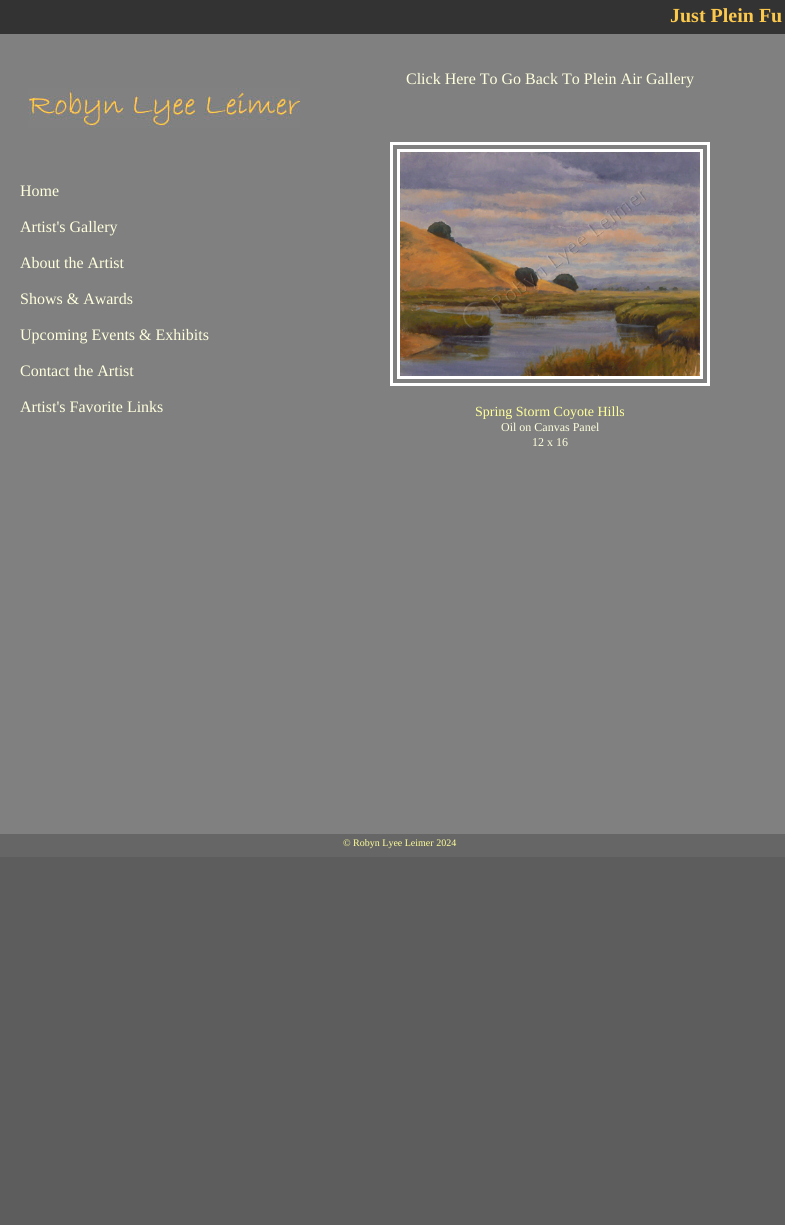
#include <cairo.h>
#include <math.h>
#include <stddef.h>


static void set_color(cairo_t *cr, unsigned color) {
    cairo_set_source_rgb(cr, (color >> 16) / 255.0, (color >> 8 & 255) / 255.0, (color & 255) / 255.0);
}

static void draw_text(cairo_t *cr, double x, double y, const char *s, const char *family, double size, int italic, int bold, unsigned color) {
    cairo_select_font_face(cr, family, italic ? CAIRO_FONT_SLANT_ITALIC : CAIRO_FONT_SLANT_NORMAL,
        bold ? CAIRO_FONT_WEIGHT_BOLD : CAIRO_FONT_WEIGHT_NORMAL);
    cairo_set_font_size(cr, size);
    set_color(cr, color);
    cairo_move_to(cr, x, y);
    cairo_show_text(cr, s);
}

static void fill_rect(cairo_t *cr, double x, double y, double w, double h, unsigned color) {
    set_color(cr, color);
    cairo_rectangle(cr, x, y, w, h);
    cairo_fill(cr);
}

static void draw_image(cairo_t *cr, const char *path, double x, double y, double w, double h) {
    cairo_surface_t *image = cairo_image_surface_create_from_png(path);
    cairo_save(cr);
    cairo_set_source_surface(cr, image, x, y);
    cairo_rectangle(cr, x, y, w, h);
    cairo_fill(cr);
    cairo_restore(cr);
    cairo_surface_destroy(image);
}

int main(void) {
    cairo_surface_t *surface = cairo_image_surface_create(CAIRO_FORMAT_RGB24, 785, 1225);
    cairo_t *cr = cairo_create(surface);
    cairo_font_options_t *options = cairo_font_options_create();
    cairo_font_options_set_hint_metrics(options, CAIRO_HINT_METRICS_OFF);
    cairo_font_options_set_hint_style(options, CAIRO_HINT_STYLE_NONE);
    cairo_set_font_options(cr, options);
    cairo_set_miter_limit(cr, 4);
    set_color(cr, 0x5D5D5D);
    cairo_paint(cr);
    fill_rect(cr, 0, 0, 785, 34, 0x333333);
    draw_text(cr, 670, 22, "Just Plein Fu", "Liberation Serif", 20, 0, 1, 0xFCC94D);
    fill_rect(cr, 0, 34, 785, 800, 0x808080);
    draw_image(cr, "assets/img1.png", 28, 88, 272, 40);
    draw_text(cr, 20, 196, "Home", "Liberation Serif", 16, 0, 0, 0xFFFFDD);
    draw_text(cr, 20, 232, "Artist's Gallery", "Liberation Serif", 16, 0, 0, 0xFFFFDD);
    draw_text(cr, 20, 268, "About the Artist", "Liberation Serif", 16, 0, 0, 0xFFFFDD);
    draw_text(cr, 20, 304, "Shows & Awards", "Liberation Serif", 16, 0, 0, 0xFFFFDD);
    draw_text(cr, 20, 340, "Upcoming Events & Exhibits", "Liberation Serif", 16, 0, 0, 0xFFFFDD);
    draw_text(cr, 20, 376, "Contact the Artist", "Liberation Serif", 16, 0, 0, 0xFFFFDD);
    draw_text(cr, 20, 412, "Artist's Favorite Links", "Liberation Serif", 16, 0, 0, 0xFFFFDD);
    draw_text(cr, 406, 84, "Click Here To Go Back To Plein Air Gallery", "Liberation Serif", 16, 0, 0, 0xFFFFDD);
    cairo_rectangle(cr, 391.5, 143.5, 317, 241);
    set_color(cr, 0xFFFFFF);
    cairo_set_line_width(cr, 3);
    cairo_stroke(cr);
    cairo_rectangle(cr, 398.5, 150.5, 303, 227);
    cairo_stroke(cr);
    draw_image(cr, "assets/img2.png", 400, 152, 300, 224);
    draw_text(cr, 475, 416, "Spring Storm Coyote Hills", "Liberation Serif", 14, 0, 0, 0xFFFF99);
    draw_text(cr, 501, 431, "Oil on Canvas Panel", "Liberation Serif", 12, 0, 0, 0xFFFFDD);
    draw_text(cr, 532, 446, "12 x 16", "Liberation Serif", 12, 0, 0, 0xFFFFDD);
    fill_rect(cr, 0, 834, 785, 23, 0x666666);
    draw_text(cr, 343, 846, "© Robyn Lyee Leimer 2024", "Liberation Serif", 10, 0, 0, 0xFFFF99);
    cairo_surface_write_to_png(surface, "output.png");
    cairo_font_options_destroy(options);
    cairo_destroy(cr);
    cairo_surface_destroy(surface);
    return 0;
}
